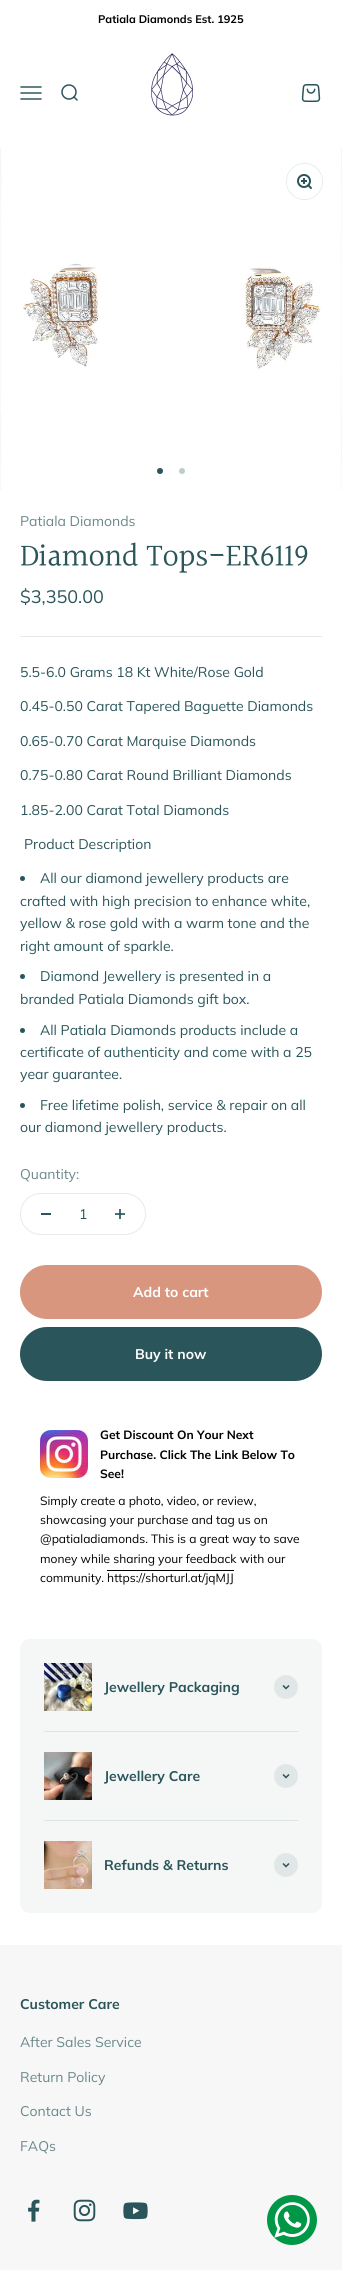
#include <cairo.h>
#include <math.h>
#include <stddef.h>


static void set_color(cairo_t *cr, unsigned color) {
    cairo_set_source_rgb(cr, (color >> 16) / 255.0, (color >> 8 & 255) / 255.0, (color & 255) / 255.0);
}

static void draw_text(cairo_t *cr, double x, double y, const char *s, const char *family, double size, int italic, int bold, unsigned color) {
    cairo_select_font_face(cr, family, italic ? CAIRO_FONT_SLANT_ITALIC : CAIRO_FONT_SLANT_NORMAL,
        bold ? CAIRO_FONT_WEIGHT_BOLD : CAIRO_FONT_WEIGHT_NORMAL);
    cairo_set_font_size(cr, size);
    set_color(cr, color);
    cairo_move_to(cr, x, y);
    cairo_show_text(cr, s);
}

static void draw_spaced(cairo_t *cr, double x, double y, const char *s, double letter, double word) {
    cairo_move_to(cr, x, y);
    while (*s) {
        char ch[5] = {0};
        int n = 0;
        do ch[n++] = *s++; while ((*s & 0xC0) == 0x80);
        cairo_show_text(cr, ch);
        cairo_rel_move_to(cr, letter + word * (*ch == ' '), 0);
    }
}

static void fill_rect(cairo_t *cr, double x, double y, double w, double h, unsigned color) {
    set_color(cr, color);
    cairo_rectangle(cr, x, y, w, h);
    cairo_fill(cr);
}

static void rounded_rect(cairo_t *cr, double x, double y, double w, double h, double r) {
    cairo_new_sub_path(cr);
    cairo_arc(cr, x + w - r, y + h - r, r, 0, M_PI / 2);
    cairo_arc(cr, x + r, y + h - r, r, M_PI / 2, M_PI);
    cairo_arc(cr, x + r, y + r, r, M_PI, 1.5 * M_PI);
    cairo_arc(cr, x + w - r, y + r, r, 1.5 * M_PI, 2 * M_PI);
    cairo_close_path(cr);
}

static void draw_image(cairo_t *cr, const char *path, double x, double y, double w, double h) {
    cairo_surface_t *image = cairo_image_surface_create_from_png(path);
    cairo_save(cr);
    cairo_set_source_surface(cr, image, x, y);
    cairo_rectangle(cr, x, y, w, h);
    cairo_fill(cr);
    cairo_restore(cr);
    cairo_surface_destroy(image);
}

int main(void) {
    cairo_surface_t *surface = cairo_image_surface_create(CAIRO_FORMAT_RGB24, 342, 2270);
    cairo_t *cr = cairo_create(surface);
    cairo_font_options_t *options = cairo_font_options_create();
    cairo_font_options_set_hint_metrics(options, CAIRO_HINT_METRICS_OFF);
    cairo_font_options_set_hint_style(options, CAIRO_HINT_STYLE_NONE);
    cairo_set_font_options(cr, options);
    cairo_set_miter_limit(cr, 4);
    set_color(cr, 0xFFFFFF);
    cairo_paint(cr);
    fill_rect(cr, 115, 1213, 10, 2, 0x4A6F73);
    draw_text(cr, 98, 23, "Patiala Diamonds Est. 1925", "Muli", 11, 0, 1, 0x000000);
    draw_image(cr, "assets/img1.png", 20, 86, 22, 14);
    draw_image(cr, "assets/img2.png", 61, 84, 17, 17);
    draw_image(cr, "assets/img3.png", 151, 53, 42, 63);
    draw_image(cr, "assets/img4.png", 301, 84, 20, 18);
    draw_image(cr, "assets/img5.png", 0, 148, 342, 342);
    cairo_arc(cr, 304.5, 181.5, 18, 0, 2 * M_PI);
    set_color(cr, 0xE5EBEB);
    cairo_set_line_width(cr, 1);
    cairo_stroke(cr);
    set_color(cr, 0xFFFFFF);
    cairo_arc(cr, 304.5, 181.5, 17.5, 0, 2 * M_PI);
    cairo_fill(cr);
    draw_image(cr, "assets/img6.png", 297, 174, 15, 15);
    set_color(cr, 0x2A555A);
    cairo_arc(cr, 160, 471, 3, 0, 2 * M_PI);
    cairo_fill(cr);
    set_color(cr, 0xBFCCCE);
    cairo_arc(cr, 182, 471, 3, 0, 2 * M_PI);
    cairo_fill(cr);
    draw_text(cr, 20, 526, "Patiala Diamonds", "Muli", 14, 0, 0, 0x6A888C);
    cairo_select_font_face(cr, "Halant", CAIRO_FONT_SLANT_NORMAL, CAIRO_FONT_WEIGHT_NORMAL);
    cairo_set_font_size(cr, 32);
    set_color(cr, 0x2A555A);
    draw_spaced(cr, 20, 567, "Diamond Tops-ER6119", -0.3, 0);
    draw_text(cr, 20, 603, "$3,350.00", "Muli", 18, 0, 0, 0x2A555A);
    fill_rect(cr, 20, 636, 302, 1, 0xE5EBEB);
    draw_text(cr, 20, 677, "5.5-6.0 Grams 18 Kt White/Rose Gold", "Muli", 14, 0, 0, 0x2A555A);
    draw_text(cr, 20, 711, "0.45-0.50 Carat Tapered Baguette Diamonds", "Muli", 14, 0, 0, 0x2A555A);
    draw_text(cr, 20, 746, "0.65-0.70 Carat Marquise Diamonds", "Muli", 14, 0, 0, 0x2A555A);
    draw_text(cr, 20, 780, "0.75-0.80 Carat Round Brilliant Diamonds", "Muli", 14, 0, 0, 0x2A555A);
    draw_text(cr, 20, 815, "1.85-2.00 Carat Total Diamonds", "Muli", 14, 0, 0, 0x2A555A);
    draw_text(cr, 24, 849, "Product Description", "Muli", 14, 0, 0, 0x2A555A);
    cairo_new_path(cr);
    cairo_arc(cr, 22.5, 878.5, 2.5, 0, 2 * M_PI);
    cairo_fill(cr);
    draw_text(cr, 40, 883, "All our diamond jewellery products are", "Muli", 14, 0, 0, 0x2A555A);
    draw_text(cr, 20, 906, "crafted with high precision to enhance white,", "Muli", 14, 0, 0, 0x2A555A);
    draw_text(cr, 20, 928, "yellow & rose gold with a warm tone and the", "Muli", 14, 0, 0, 0x2A555A);
    draw_text(cr, 20, 951, "right amount of sparkle.", "Muli", 14, 0, 0, 0x2A555A);
    cairo_new_path(cr);
    cairo_arc(cr, 22.5, 976.5, 2.5, 0, 2 * M_PI);
    cairo_fill(cr);
    draw_text(cr, 40, 981, "Diamond Jewellery is presented in a", "Muli", 14, 0, 0, 0x2A555A);
    draw_text(cr, 20, 1004, "branded Patiala Diamonds gift box.", "Muli", 14, 0, 0, 0x2A555A);
    cairo_new_path(cr);
    cairo_arc(cr, 22.5, 1030.5, 2.5, 0, 2 * M_PI);
    cairo_fill(cr);
    draw_text(cr, 40, 1035, "All Patiala Diamonds products include a", "Muli", 14, 0, 0, 0x2A555A);
    draw_text(cr, 20, 1057, "certificate of authenticity and come with a 25", "Muli", 14, 0, 0, 0x2A555A);
    draw_text(cr, 20, 1079, "year guarantee.", "Muli", 14, 0, 0, 0x2A555A);
    cairo_new_path(cr);
    cairo_arc(cr, 22.5, 1105.5, 2.5, 0, 2 * M_PI);
    cairo_fill(cr);
    draw_text(cr, 40, 1110, "Free lifetime polish, service & repair on all", "Muli", 14, 0, 0, 0x2A555A);
    draw_text(cr, 20, 1132, "our diamond jewellery products.", "Muli", 14, 0, 0, 0x2A555A);
    draw_text(cr, 20, 1179, "Quantity:", "Muli", 14, 0, 0, 0x6A888C);
    rounded_rect(cr, 20.5, 1193.5, 125, 41, 20.5);
    set_color(cr, 0xE5EBEB);
    cairo_stroke(cr);
    fill_rect(cr, 41, 1213, 10, 2, 0x2A555A);
    draw_text(cr, 79, 1219, "1", "Muli", 14, 0, 0, 0x2A555A);
    fill_rect(cr, 119, 1209, 2, 10, 0x4A6F73);
    fill_rect(cr, 119, 1213, 2, 2, 0x2F595E);
    set_color(cr, 0xD9967E);
    rounded_rect(cr, 20, 1265, 302, 54, 27);
    cairo_fill(cr);
    draw_text(cr, 133, 1297, "Add to cart", "Muli", 14, 0, 1, 0xFFFFFF);
    set_color(cr, 0x2A555A);
    rounded_rect(cr, 20, 1327, 302, 54, 27);
    cairo_fill(cr);
    draw_text(cr, 135, 1359, "Buy it now", "Muli", 14, 0, 1, 0xFFFFFF);
    draw_image(cr, "assets/img7.png", 40, 1430, 48, 48);
    draw_text(cr, 100, 1439, "Get Discount On Your Next", "Muli", 12, 0, 1, 0x000000);
    draw_text(cr, 100, 1459, "Purchase. Click The Link Below To", "Muli", 12, 0, 1, 0x000000);
    draw_text(cr, 100, 1478, "See!", "Muli", 12, 0, 1, 0x000000);
    draw_text(cr, 40, 1505, "Simply create a photo, video, or review,", "Muli", 12, 0, 0, 0x000000);
    draw_text(cr, 40, 1524, "showcasing your purchase and tag us on", "Muli", 12, 0, 0, 0x000000);
    draw_text(cr, 40, 1543, "@patialadiamonds. This is a great way to save", "Muli", 12, 0, 0, 0x000000);
    draw_text(cr, 40, 1563, "money while sharing your feedback with our", "Muli", 12, 0, 0, 0x000000);
    fill_rect(cr, 107, 1570, 127, 1, 0x000000);
    draw_text(cr, 40, 1582, "community. https://shorturl.at/jqMJJ", "Muli", 12, 0, 0, 0x000000);
    set_color(cr, 0xF5F7F7);
    rounded_rect(cr, 20, 1639, 302, 274, 10);
    cairo_fill(cr);
    fill_rect(cr, 44, 1731, 254, 1, 0xDDE4E4);
    draw_image(cr, "assets/img8.png", 44, 1663, 48, 48);
    draw_text(cr, 104, 1692, "Jewellery Packaging", "Muli", 14, 0, 1, 0x2A555A);
    set_color(cr, 0xE1E7E7);
    cairo_new_path(cr);
    cairo_arc(cr, 286, 1687, 12, 0, 2 * M_PI);
    cairo_fill(cr);
    cairo_new_path(cr);
    cairo_move_to(cr, 283, 1685.5);
    cairo_line_to(cr, 286, 1688.5);
    cairo_line_to(cr, 289, 1685.5);
    set_color(cr, 0x2A555A);
    cairo_set_line_width(cr, 1.5);
    cairo_stroke(cr);
    fill_rect(cr, 44, 1820, 254, 1, 0xDDE4E4);
    draw_image(cr, "assets/img9.png", 44, 1752, 48, 48);
    draw_text(cr, 104, 1781, "Jewellery Care", "Muli", 14, 0, 1, 0x2A555A);
    set_color(cr, 0xE1E7E7);
    cairo_new_path(cr);
    cairo_arc(cr, 286, 1776, 12, 0, 2 * M_PI);
    cairo_fill(cr);
    cairo_new_path(cr);
    cairo_move_to(cr, 283, 1774.5);
    cairo_line_to(cr, 286, 1777.5);
    cairo_line_to(cr, 289, 1774.5);
    set_color(cr, 0x2A555A);
    cairo_stroke(cr);
    draw_image(cr, "assets/img10.png", 44, 1841, 48, 48);
    draw_text(cr, 104, 1870, "Refunds & Returns", "Muli", 14, 0, 1, 0x2A555A);
    set_color(cr, 0xE1E7E7);
    cairo_new_path(cr);
    cairo_arc(cr, 286, 1865, 12, 0, 2 * M_PI);
    cairo_fill(cr);
    cairo_new_path(cr);
    cairo_move_to(cr, 283, 1863.5);
    cairo_line_to(cr, 286, 1866.5);
    cairo_line_to(cr, 289, 1863.5);
    set_color(cr, 0x2A555A);
    cairo_stroke(cr);
    fill_rect(cr, 0, 1945, 342, 325, 0xF7F7F7);
    draw_text(cr, 20, 2009, "Customer Care", "Muli", 14, 0, 1, 0x2A555A);
    draw_text(cr, 20, 2047, "After Sales Service", "Muli", 14, 0, 0, 0x6A888C);
    draw_text(cr, 20, 2082, "Return Policy", "Muli", 14, 0, 0, 0x6A888C);
    draw_text(cr, 20, 2116, "Contact Us", "Muli", 14, 0, 0, 0x6A888C);
    draw_text(cr, 20, 2151, "FAQs", "Muli", 14, 0, 0, 0x6A888C);
    draw_image(cr, "assets/img11.png", 28, 2199, 12, 23);
    draw_image(cr, "assets/img12.png", 73, 2199, 23, 23);
    draw_image(cr, "assets/img13.png", 123, 2202, 25, 18);
    draw_image(cr, "assets/img14.png", 267, 2195, 50, 50);
    cairo_surface_write_to_png(surface, "output.png");
    cairo_font_options_destroy(options);
    cairo_destroy(cr);
    cairo_surface_destroy(surface);
    return 0;
}
